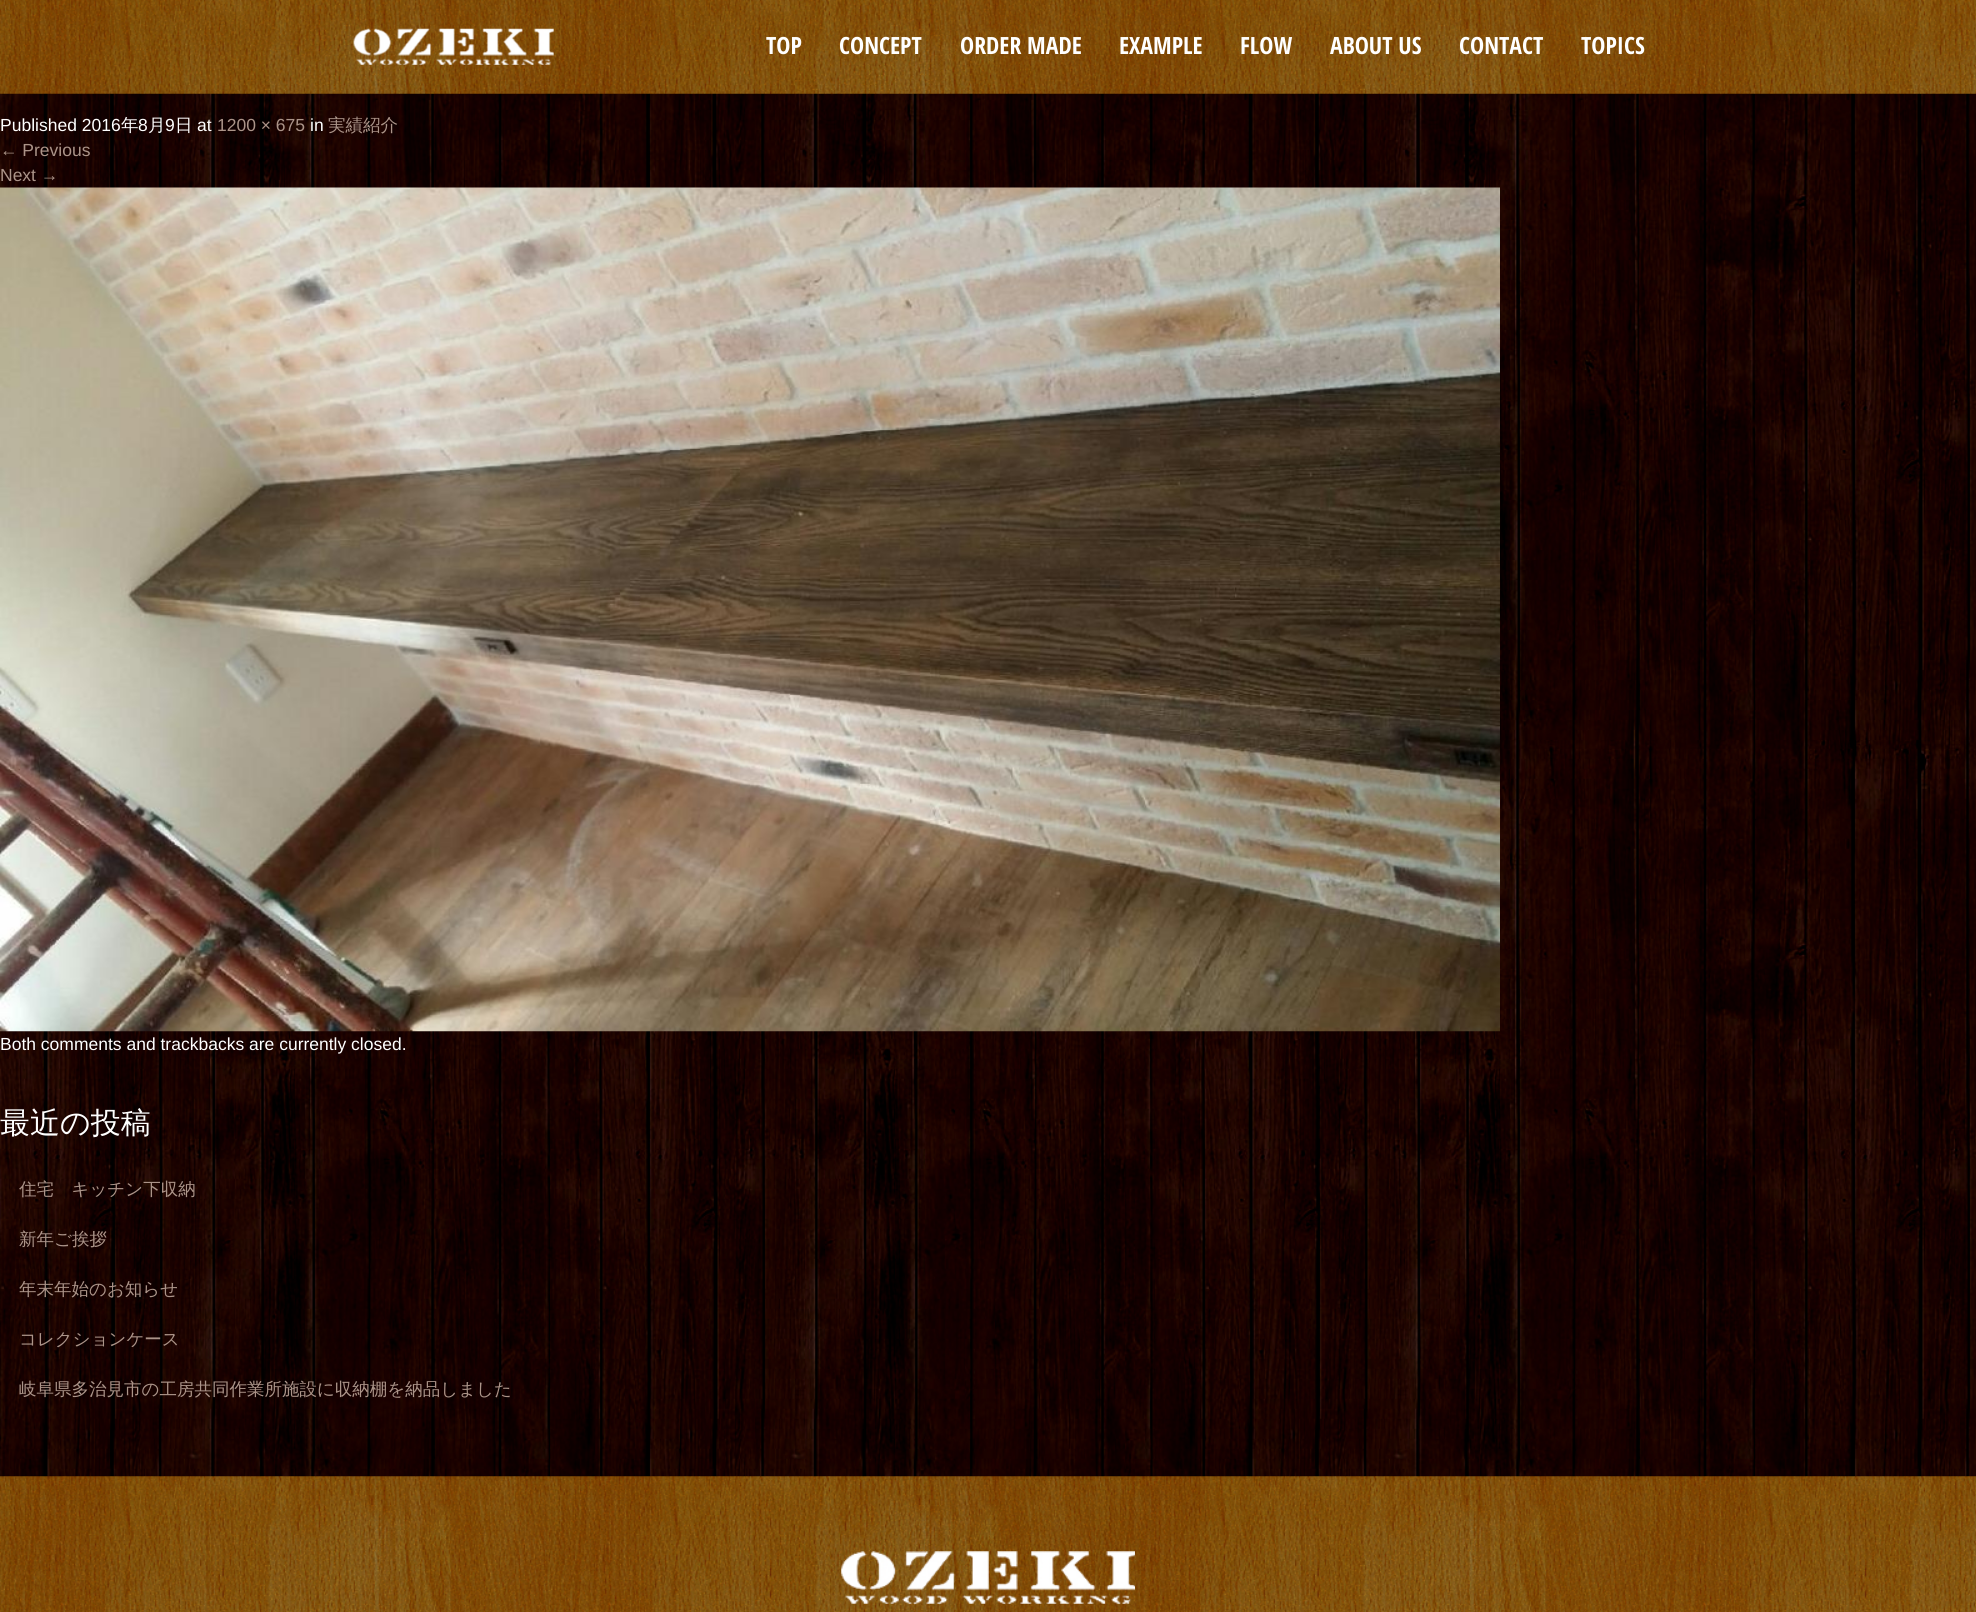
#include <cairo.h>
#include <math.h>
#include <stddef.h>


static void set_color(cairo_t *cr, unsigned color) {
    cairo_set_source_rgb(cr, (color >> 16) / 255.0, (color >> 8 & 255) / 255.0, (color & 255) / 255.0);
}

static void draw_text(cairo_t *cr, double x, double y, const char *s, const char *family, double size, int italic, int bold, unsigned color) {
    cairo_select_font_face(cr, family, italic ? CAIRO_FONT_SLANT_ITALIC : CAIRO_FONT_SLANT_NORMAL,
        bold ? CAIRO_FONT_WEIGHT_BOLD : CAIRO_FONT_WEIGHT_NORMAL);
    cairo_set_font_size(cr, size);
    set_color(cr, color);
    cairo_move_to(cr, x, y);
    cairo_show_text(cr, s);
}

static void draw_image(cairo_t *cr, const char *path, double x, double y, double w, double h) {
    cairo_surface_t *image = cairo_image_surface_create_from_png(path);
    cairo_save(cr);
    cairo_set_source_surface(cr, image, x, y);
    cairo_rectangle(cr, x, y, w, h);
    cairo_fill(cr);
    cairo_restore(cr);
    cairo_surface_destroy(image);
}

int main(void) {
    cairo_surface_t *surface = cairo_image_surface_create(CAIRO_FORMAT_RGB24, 1976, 1612);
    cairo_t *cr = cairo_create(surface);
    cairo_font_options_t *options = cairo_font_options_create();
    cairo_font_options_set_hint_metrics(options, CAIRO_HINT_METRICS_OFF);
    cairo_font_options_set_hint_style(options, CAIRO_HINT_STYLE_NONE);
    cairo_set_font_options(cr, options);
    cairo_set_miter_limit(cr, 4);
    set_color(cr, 0xFFFFFF);
    cairo_paint(cr);
    draw_image(cr, "assets/img1.png", 0, 93, 1976, 1384);
    draw_image(cr, "assets/img2.png", 0, 0, 1976, 94);
    draw_image(cr, "assets/img3.png", 353, 28, 201, 37);
    draw_text(cr, 766, 54, "TOP", "Open Sans Condensed", 23.75, 0, 1, 0xFFFFFF);
    draw_text(cr, 839, 54, "CONCEPT", "Open Sans Condensed", 23.75, 0, 1, 0xFFFFFF);
    draw_text(cr, 960, 54, "ORDER MADE", "Open Sans Condensed", 23.75, 0, 1, 0xFFFFFF);
    draw_text(cr, 1119, 54, "EXAMPLE", "Open Sans Condensed", 23.75, 0, 1, 0xFFFFFF);
    draw_text(cr, 1240, 54, "FLOW", "Open Sans Condensed", 23.75, 0, 1, 0xFFFFFF);
    draw_text(cr, 1330, 54, "ABOUT US", "Open Sans Condensed", 23.75, 0, 1, 0xFFFFFF);
    draw_text(cr, 1459, 54, "CONTACT", "Open Sans Condensed", 23.75, 0, 1, 0xFFFFFF);
    draw_text(cr, 1581, 54, "TOPICS", "Open Sans Condensed", 23.75, 0, 1, 0xFFFFFF);
    draw_text(cr, 0, 131, "Published 2016", "Liberation Sans", 17.5, 0, 0, 0xFFFFFF);
    draw_text(cr, 121, 131, "年", "WenQuanYi Zen Hei Medium", 17.5, 0, 0, 0xFFFFFF);
    draw_text(cr, 138, 131, "8", "Liberation Sans", 17.5, 0, 0, 0xFFFFFF);
    draw_text(cr, 148, 131, "月", "WenQuanYi Zen Hei Medium", 17.5, 0, 0, 0xFFFFFF);
    draw_text(cr, 165, 131, "9", "Liberation Sans", 17.5, 0, 0, 0xFFFFFF);
    draw_text(cr, 175, 131, "日", "WenQuanYi Zen Hei Medium", 17.5, 0, 0, 0xFFFFFF);
    draw_text(cr, 197, 131, "at", "Liberation Sans", 17.5, 0, 0, 0xFFFFFF);
    draw_text(cr, 217, 131, "1200 × 675", "Liberation Sans", 17.5, 0, 0, 0xAB9489);
    draw_text(cr, 310, 131, "in", "Liberation Sans", 17.5, 0, 0, 0xFFFFFF);
    draw_text(cr, 328, 131, "実績紹介", "WenQuanYi Zen Hei Medium", 17.5, 0, 0, 0xAB9489);
    draw_text(cr, 0, 156, "← Previous", "Liberation Sans", 17.5, 0, 0, 0xAB9489);
    draw_text(cr, 0, 181, "Next →", "Liberation Sans", 17.5, 0, 0, 0xAB9489);
    draw_image(cr, "assets/img4.png", 0, 187, 1500, 845);
    draw_text(cr, 0, 1050, "Both comments and trackbacks are currently closed.", "Liberation Sans", 17.5, 0, 0, 0xFFFFFF);
    draw_text(cr, 0, 1133, "最近の投稿", "WenQuanYi Zen Hei Medium", 30, 0, 0, 0xFFFFFF);
    draw_text(cr, 19, 1195, "住宅　キッチン下収納", "WenQuanYi Zen Hei Medium", 17.5, 0, 0, 0xAB9489);
    draw_text(cr, 19, 1245, "新年ご挨拶", "WenQuanYi Zen Hei Medium", 17.5, 0, 0, 0xAB9489);
    draw_text(cr, 19, 1295, "年末年始のお知らせ", "WenQuanYi Zen Hei Medium", 17.5, 0, 0, 0xAB9489);
    draw_text(cr, 19, 1345, "コレクションケース", "WenQuanYi Zen Hei Medium", 17.5, 0, 0, 0xAB9489);
    draw_text(cr, 19, 1395, "岐阜県多治見市の工房共同作業所施設に収納棚を納品しました", "WenQuanYi Zen Hei Medium", 17.5, 0, 0, 0xAB9489);
    draw_image(cr, "assets/img5.png", 0, 1476, 1976, 136);
    draw_image(cr, "assets/img6.png", 841, 1551, 294, 53);
    cairo_surface_write_to_png(surface, "output.png");
    cairo_font_options_destroy(options);
    cairo_destroy(cr);
    cairo_surface_destroy(surface);
    return 0;
}
